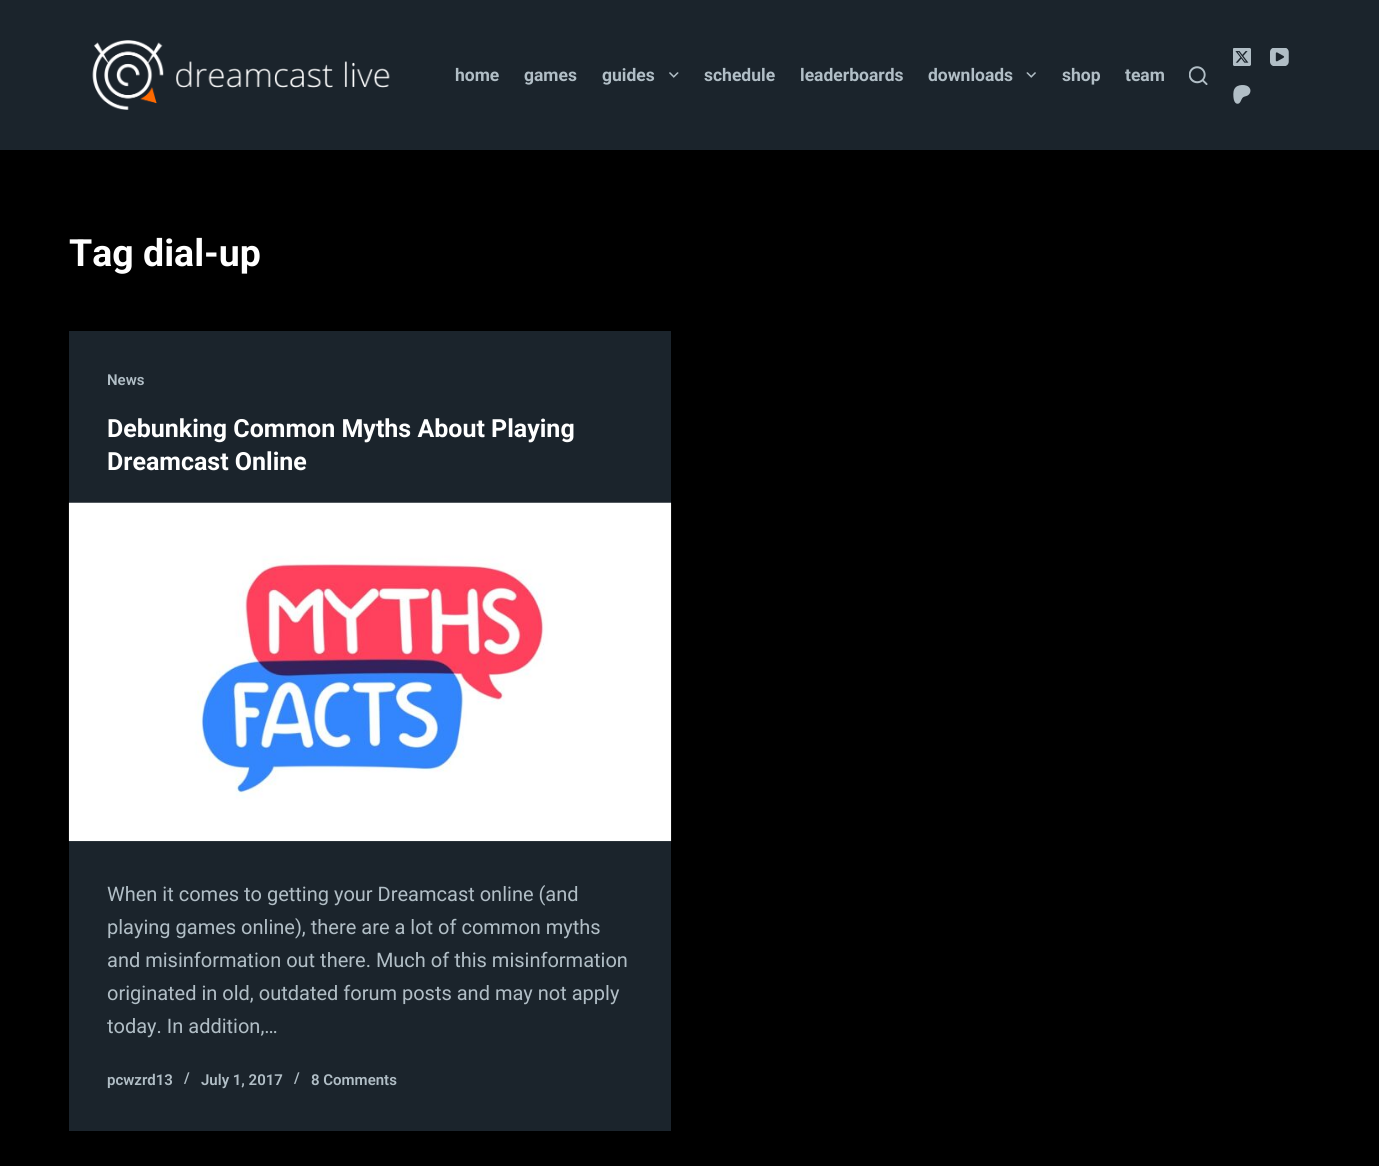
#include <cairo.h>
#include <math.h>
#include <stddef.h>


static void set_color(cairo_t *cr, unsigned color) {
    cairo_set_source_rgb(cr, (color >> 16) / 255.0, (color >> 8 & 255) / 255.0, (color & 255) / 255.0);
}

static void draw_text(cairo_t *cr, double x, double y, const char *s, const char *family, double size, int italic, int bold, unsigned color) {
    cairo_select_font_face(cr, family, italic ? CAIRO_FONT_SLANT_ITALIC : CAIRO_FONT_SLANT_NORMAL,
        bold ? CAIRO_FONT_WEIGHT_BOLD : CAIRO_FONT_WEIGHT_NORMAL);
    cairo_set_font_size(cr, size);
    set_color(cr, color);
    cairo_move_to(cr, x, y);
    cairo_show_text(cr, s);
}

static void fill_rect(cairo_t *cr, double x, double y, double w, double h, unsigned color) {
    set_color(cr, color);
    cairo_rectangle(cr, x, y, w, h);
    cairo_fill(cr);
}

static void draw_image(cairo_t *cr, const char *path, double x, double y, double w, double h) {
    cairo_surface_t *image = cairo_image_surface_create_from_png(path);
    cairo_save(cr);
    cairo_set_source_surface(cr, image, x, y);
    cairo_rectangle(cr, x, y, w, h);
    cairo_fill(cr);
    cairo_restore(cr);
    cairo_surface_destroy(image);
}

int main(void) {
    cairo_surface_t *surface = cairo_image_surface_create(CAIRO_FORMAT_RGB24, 1379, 1166);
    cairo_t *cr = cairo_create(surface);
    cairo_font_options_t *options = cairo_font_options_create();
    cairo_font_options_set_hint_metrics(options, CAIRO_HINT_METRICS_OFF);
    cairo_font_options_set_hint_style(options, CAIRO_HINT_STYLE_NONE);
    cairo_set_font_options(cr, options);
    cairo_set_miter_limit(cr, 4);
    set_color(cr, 0x000000);
    cairo_paint(cr);
    fill_rect(cr, 0, 0, 1379, 150, 0x1B242C);
    draw_image(cr, "assets/img1.png", 92, 40, 298, 70);
    draw_text(cr, 455, 81, "home", "Roboto", 17.5, 0, 1, 0xB1BEC6);
    draw_text(cr, 524, 81, "games", "Roboto", 17.5, 0, 1, 0xB1BEC6);
    draw_text(cr, 602, 81, "guides", "Roboto", 17.5, 0, 1, 0xB1BEC6);
    draw_image(cr, "assets/img2.png", 669, 72, 10, 6);
    draw_text(cr, 704, 81, "schedule", "Roboto", 17.5, 0, 1, 0xB1BEC6);
    draw_text(cr, 800, 81, "leaderboards", "Roboto", 17.5, 0, 1, 0xB1BEC6);
    draw_text(cr, 928, 81, "downloads", "Roboto", 17.5, 0, 1, 0xB1BEC6);
    draw_image(cr, "assets/img3.png", 1026, 72, 10, 6);
    draw_text(cr, 1062, 81, "shop", "Roboto", 17.5, 0, 1, 0xB1BEC6);
    cairo_save(cr);
    cairo_rectangle(cr, 443, 0, 721, 150);
    cairo_clip(cr);
    draw_text(cr, 1125, 81, "team", "Roboto", 17.5, 0, 1, 0xB1BEC6);
    cairo_restore(cr);
    draw_image(cr, "assets/img4.png", 1189, 66, 19, 19);
    draw_image(cr, "assets/img5.png", 1233, 48, 18, 18);
    draw_image(cr, "assets/img6.png", 1270, 48, 19, 18);
    draw_image(cr, "assets/img7.png", 1233, 85, 18, 19);
    draw_text(cr, 69, 266, "Tag dial-up", "Roboto", 37.5, 0, 1, 0xFFFFFF);
    fill_rect(cr, 69, 331, 602, 800, 0x1B242C);
    draw_text(cr, 107, 385, "News", "Roboto SemiBold", 15, 0, 0, 0xB1BEC6);
    draw_text(cr, 107, 437, "Debunking Common Myths About Playing", "Roboto", 25, 0, 1, 0xFFFFFF);
    draw_text(cr, 107, 470, "Dreamcast Online", "Roboto", 25, 0, 1, 0xFFFFFF);
    draw_image(cr, "assets/img8.png", 68, 502, 604, 340);
    draw_text(cr, 107, 901, "When it comes to getting your Dreamcast online (and", "Roboto", 20, 0, 0, 0xB1BEC6);
    draw_text(cr, 107, 934, "playing games online), there are a lot of common myths", "Roboto", 20, 0, 0, 0xB1BEC6);
    draw_text(cr, 107, 967, "and misinformation out there. Much of this misinformation", "Roboto", 20, 0, 0, 0xB1BEC6);
    draw_text(cr, 107, 1000, "originated in old, outdated forum posts and may not apply", "Roboto", 20, 0, 0, 0xB1BEC6);
    draw_text(cr, 107, 1033, "today. In addition,…", "Roboto", 20, 0, 0, 0xB1BEC6);
    draw_text(cr, 107, 1085, "pcwzrd13", "Roboto SemiBold", 15, 0, 0, 0xB1BEC6);
    draw_text(cr, 184, 1083, "/", "Roboto SemiBold", 15, 0, 0, 0xB1BEC6);
    draw_text(cr, 201, 1085, "July 1, 2017", "Roboto SemiBold", 15, 0, 0, 0xB1BEC6);
    draw_text(cr, 294, 1083, "/", "Roboto SemiBold", 15, 0, 0, 0xB1BEC6);
    draw_text(cr, 311, 1085, "8 Comments", "Roboto SemiBold", 15, 0, 0, 0xB1BEC6);
    cairo_surface_write_to_png(surface, "output.png");
    cairo_font_options_destroy(options);
    cairo_destroy(cr);
    cairo_surface_destroy(surface);
    return 0;
}
